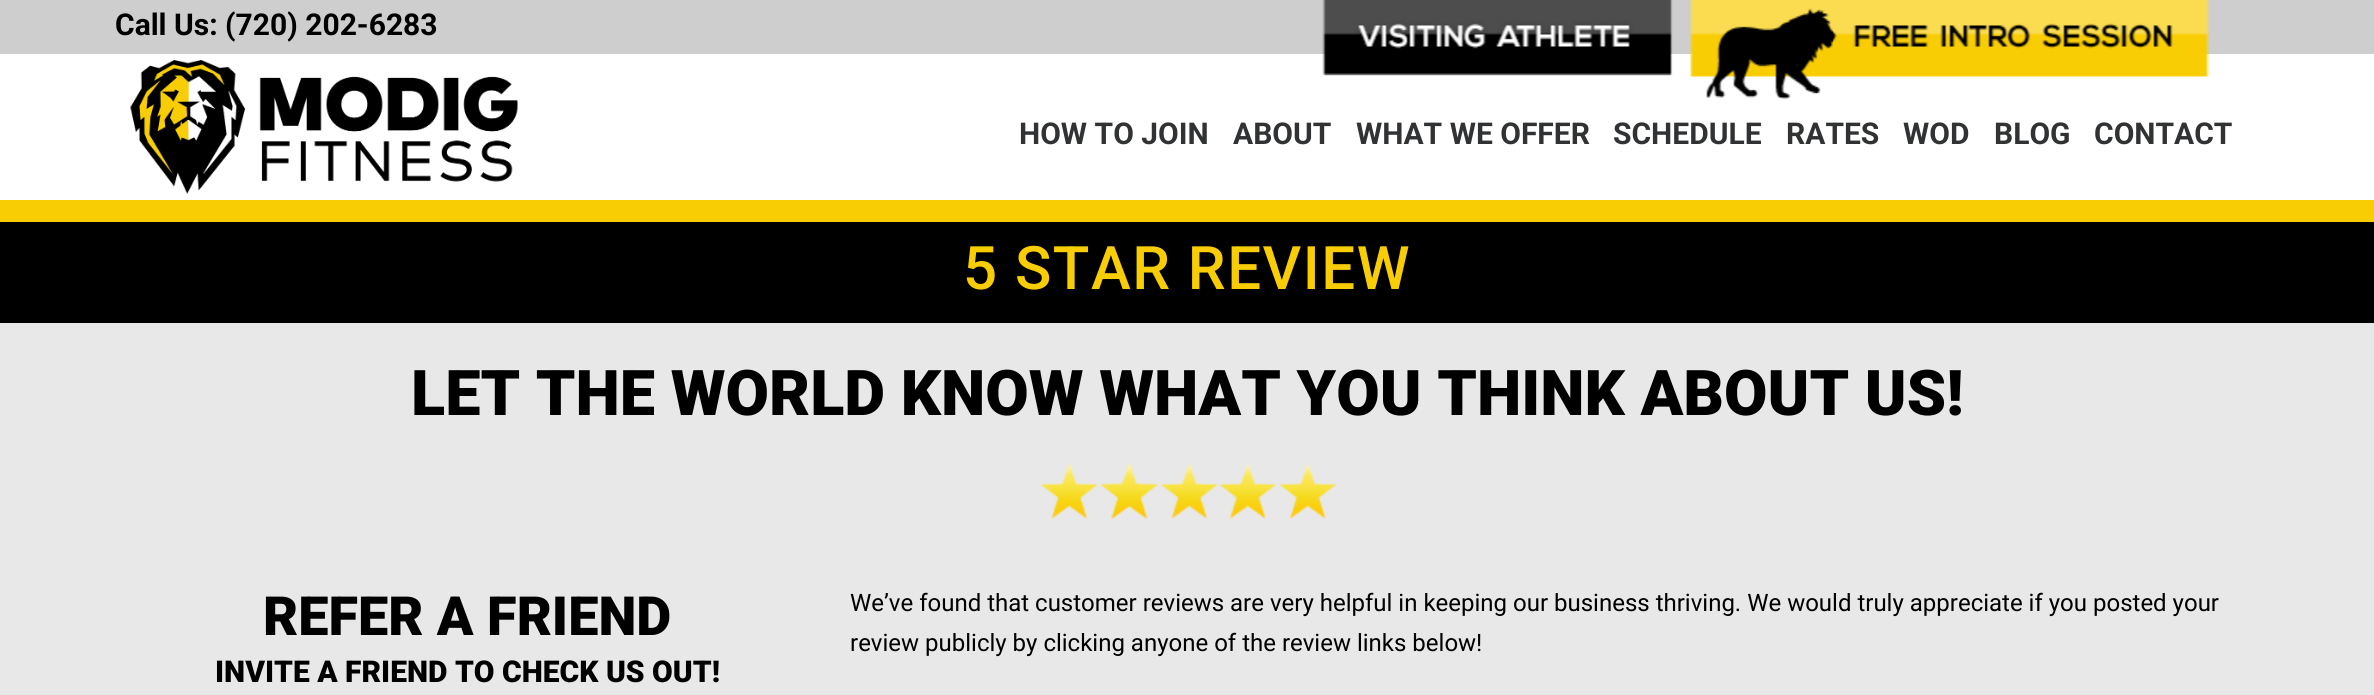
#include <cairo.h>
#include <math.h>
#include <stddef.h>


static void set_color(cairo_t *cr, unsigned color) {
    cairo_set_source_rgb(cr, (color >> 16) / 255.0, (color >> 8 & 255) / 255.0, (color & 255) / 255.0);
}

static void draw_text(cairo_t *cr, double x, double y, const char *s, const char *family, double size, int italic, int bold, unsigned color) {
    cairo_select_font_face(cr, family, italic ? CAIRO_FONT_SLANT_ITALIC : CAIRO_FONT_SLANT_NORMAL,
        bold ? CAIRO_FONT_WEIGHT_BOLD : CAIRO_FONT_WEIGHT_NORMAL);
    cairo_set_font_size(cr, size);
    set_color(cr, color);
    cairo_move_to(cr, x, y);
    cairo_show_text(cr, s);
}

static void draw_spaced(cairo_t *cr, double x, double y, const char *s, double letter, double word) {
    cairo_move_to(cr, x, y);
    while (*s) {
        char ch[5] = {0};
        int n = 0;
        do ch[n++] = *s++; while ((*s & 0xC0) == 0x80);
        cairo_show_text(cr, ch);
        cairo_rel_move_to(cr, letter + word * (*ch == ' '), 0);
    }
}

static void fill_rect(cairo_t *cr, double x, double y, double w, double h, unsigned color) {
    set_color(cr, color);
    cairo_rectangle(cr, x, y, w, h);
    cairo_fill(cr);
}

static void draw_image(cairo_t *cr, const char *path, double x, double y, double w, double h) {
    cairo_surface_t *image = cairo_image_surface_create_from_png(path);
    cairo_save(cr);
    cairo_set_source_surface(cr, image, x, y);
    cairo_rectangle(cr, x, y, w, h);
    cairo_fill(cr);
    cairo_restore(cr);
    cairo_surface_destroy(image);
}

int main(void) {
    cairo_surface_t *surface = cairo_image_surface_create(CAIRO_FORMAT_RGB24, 2374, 695);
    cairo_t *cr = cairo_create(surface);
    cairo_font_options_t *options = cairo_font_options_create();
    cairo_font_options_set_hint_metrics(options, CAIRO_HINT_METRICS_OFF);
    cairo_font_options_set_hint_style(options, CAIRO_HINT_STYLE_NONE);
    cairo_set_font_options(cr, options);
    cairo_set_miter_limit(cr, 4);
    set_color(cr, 0xE8E8E8);
    cairo_paint(cr);
    fill_rect(cr, 0, 0, 2374, 54, 0xCECECE);
    draw_text(cr, 115, 35, "Call Us: (720) 202-6283", "Roboto", 30, 0, 1, 0x000000);
    fill_rect(cr, 0, 54, 2374, 146, 0xFFFFFF);
    draw_image(cr, "assets/img1.png", 1322, 0, 351, 76);
    draw_image(cr, "assets/img2.png", 1690, 0, 519, 99);
    fill_rect(cr, 0, 200, 2374, 22, 0xF9CD04);
    draw_image(cr, "assets/img3.png", 130, 60, 388, 134);
    draw_text(cr, 1019, 144, "HOW TO JOIN", "Roboto", 30, 0, 1, 0x303233);
    draw_text(cr, 1233, 144, "ABOUT", "Roboto", 30, 0, 1, 0x303233);
    draw_text(cr, 1356, 144, "WHAT WE OFFER", "Roboto", 30, 0, 1, 0x303233);
    draw_text(cr, 1613, 144, "SCHEDULE", "Roboto", 30, 0, 1, 0x303233);
    draw_text(cr, 1786, 144, "RATES", "Roboto", 30, 0, 1, 0x303233);
    draw_text(cr, 1903, 144, "WOD", "Roboto", 30, 0, 1, 0x303233);
    draw_text(cr, 1994, 144, "BLOG", "Roboto", 30, 0, 1, 0x303233);
    draw_text(cr, 2094, 144, "CONTACT", "Roboto", 30, 0, 1, 0x303233);
    fill_rect(cr, 0, 222, 2374, 101, 0x000000);
    cairo_select_font_face(cr, "Roboto Medium", CAIRO_FONT_SLANT_NORMAL, CAIRO_FONT_WEIGHT_NORMAL);
    cairo_set_font_size(cr, 60);
    set_color(cr, 0xF9CD04);
    draw_spaced(cr, 963, 289, "5 STAR REVIEW", 1.5, 0);
    draw_text(cr, 411, 415, "LET THE WORLD KNOW WHAT YOU THINK ABOUT US!", "Roboto Black", 63, 0, 0, 0x000000);
    draw_image(cr, "assets/img4.png", 1040, 463, 297, 57);
    draw_text(cr, 263, 635, "REFER A FRIEND", "Roboto Black", 54, 0, 0, 0x000000);
    draw_text(cr, 215, 682, "INVITE A FRIEND TO CHECK US OUT!", "Roboto Black", 30, 0, 0, 0x000000);
    draw_text(cr, 850, 611, "We’ve found that customer reviews are very helpful in keeping our business thriving. We would truly appreciate if you posted your", "Roboto", 24, 0, 0, 0x000000);
    draw_text(cr, 850, 651, "review publicly by clicking anyone of the review links below!", "Roboto", 24, 0, 0, 0x000000);
    cairo_surface_write_to_png(surface, "output.png");
    cairo_font_options_destroy(options);
    cairo_destroy(cr);
    cairo_surface_destroy(surface);
    return 0;
}
